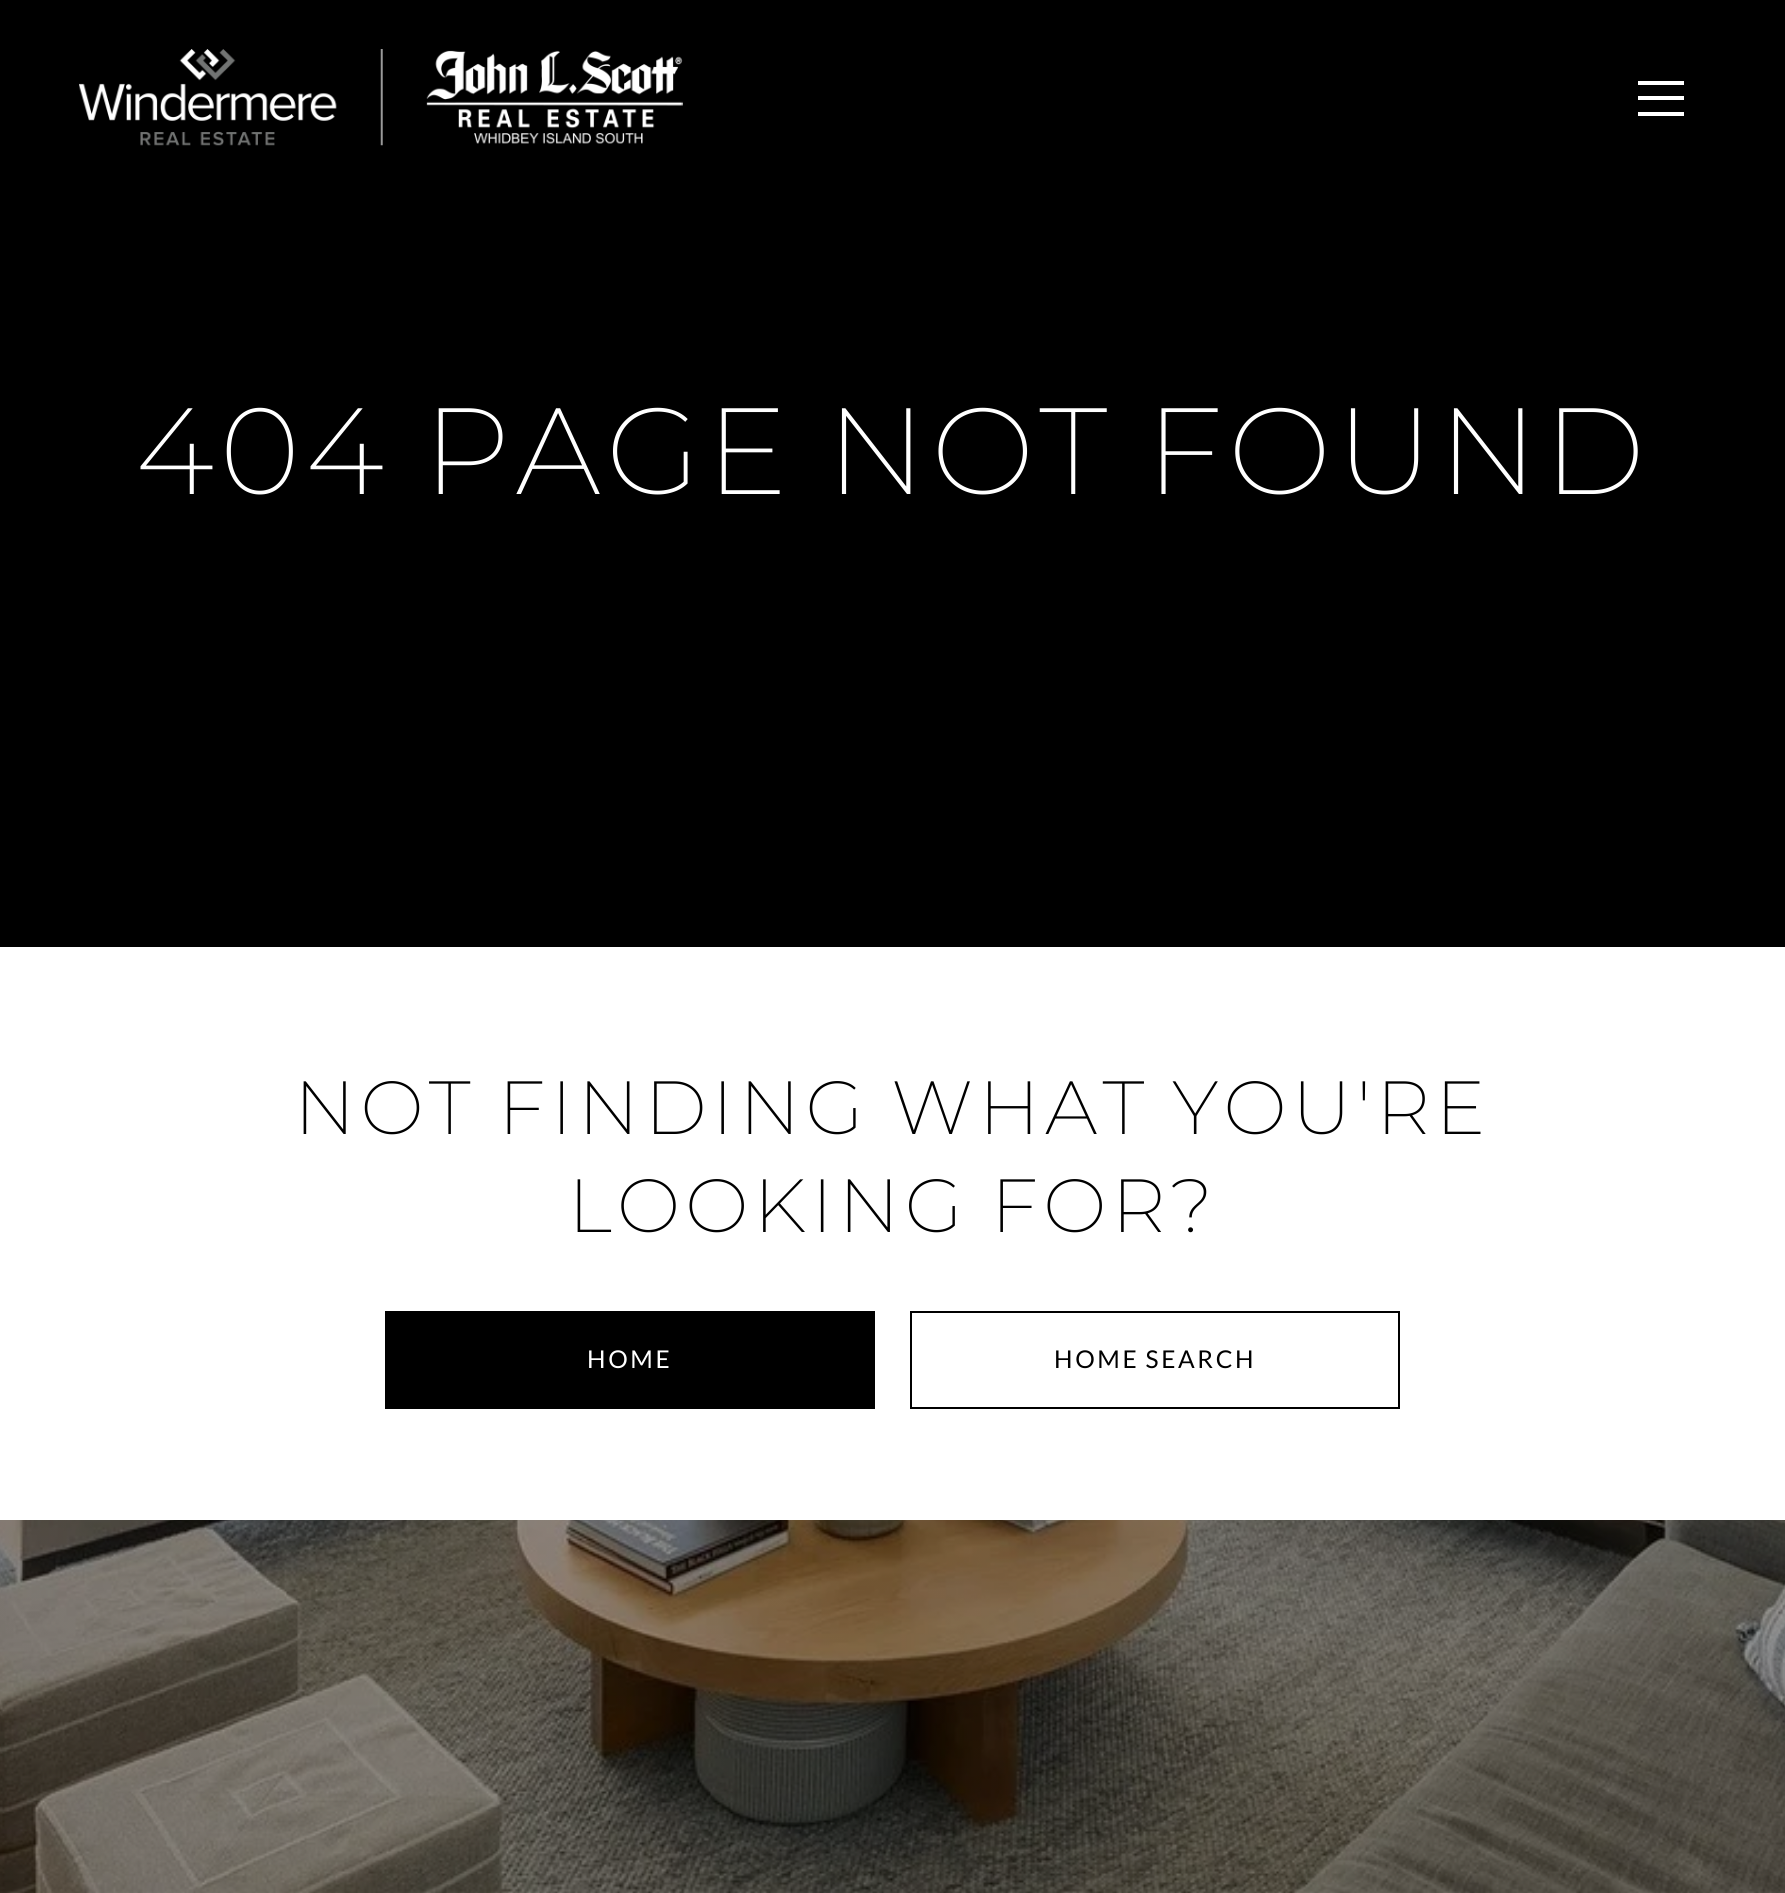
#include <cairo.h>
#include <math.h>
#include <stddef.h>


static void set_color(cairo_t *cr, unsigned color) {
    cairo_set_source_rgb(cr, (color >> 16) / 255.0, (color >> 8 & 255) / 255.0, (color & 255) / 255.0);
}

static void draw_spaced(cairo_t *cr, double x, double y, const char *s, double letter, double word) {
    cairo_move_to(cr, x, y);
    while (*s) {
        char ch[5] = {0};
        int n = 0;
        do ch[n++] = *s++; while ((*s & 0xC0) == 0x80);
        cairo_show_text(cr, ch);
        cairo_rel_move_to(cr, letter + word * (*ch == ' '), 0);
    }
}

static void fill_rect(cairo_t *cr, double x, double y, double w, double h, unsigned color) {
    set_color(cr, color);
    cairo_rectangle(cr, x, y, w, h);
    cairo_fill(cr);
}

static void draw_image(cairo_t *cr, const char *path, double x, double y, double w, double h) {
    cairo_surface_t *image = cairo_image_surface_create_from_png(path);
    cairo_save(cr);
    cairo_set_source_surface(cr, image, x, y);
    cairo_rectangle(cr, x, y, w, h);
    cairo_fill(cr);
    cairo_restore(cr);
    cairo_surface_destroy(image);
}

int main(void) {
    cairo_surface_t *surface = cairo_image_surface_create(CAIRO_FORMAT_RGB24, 1785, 1893);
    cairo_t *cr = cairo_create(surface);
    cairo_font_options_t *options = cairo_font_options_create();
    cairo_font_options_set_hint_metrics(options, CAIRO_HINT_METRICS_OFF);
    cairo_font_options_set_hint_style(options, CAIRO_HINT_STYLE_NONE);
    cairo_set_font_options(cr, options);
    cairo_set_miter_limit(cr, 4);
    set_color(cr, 0xFFFFFF);
    cairo_paint(cr);
    fill_rect(cr, 0, 0, 1785, 947, 0x000000);
    draw_image(cr, "assets/img1.png", 79, 49, 604, 97);
    fill_rect(cr, 1638, 96, 46, 4, 0xFFFFFF);
    fill_rect(cr, 1638, 81, 46, 4, 0xFFFFFF);
    fill_rect(cr, 1638, 112, 46, 4, 0xFFFFFF);
    cairo_select_font_face(cr, "Montserrat ExtraLight", CAIRO_FONT_SLANT_NORMAL, CAIRO_FONT_WEIGHT_NORMAL);
    cairo_set_font_size(cr, 122.5);
    draw_spaced(cr, 135, 494, "404 PAGE NOT FOUND", 5.25, -3);
    cairo_set_font_size(cr, 75.25);
    set_color(cr, 0x000000);
    draw_spaced(cr, 294, 1134, "NOT FINDING WHAT YOU'RE", 5.25, -2);
    draw_spaced(cr, 568, 1232, "LOOKING FOR?", 5.25, -2);
    fill_rect(cr, 385, 1311, 490, 98, 0x000000);
    cairo_select_font_face(cr, "Lato", CAIRO_FONT_SLANT_NORMAL, CAIRO_FONT_WEIGHT_NORMAL);
    cairo_set_font_size(cr, 24.5);
    set_color(cr, 0xFFFFFF);
    draw_spaced(cr, 587, 1368, "HOME", 2.6, 0);
    cairo_rectangle(cr, 911, 1312, 488, 96);
    set_color(cr, 0x000000);
    cairo_stroke(cr);
    draw_spaced(cr, 1054, 1368, "HOME SEARCH", 2.6, -1);
    draw_image(cr, "assets/img2.png", 0, 1520, 1785, 373);
    cairo_surface_write_to_png(surface, "output.png");
    cairo_font_options_destroy(options);
    cairo_destroy(cr);
    cairo_surface_destroy(surface);
    return 0;
}
